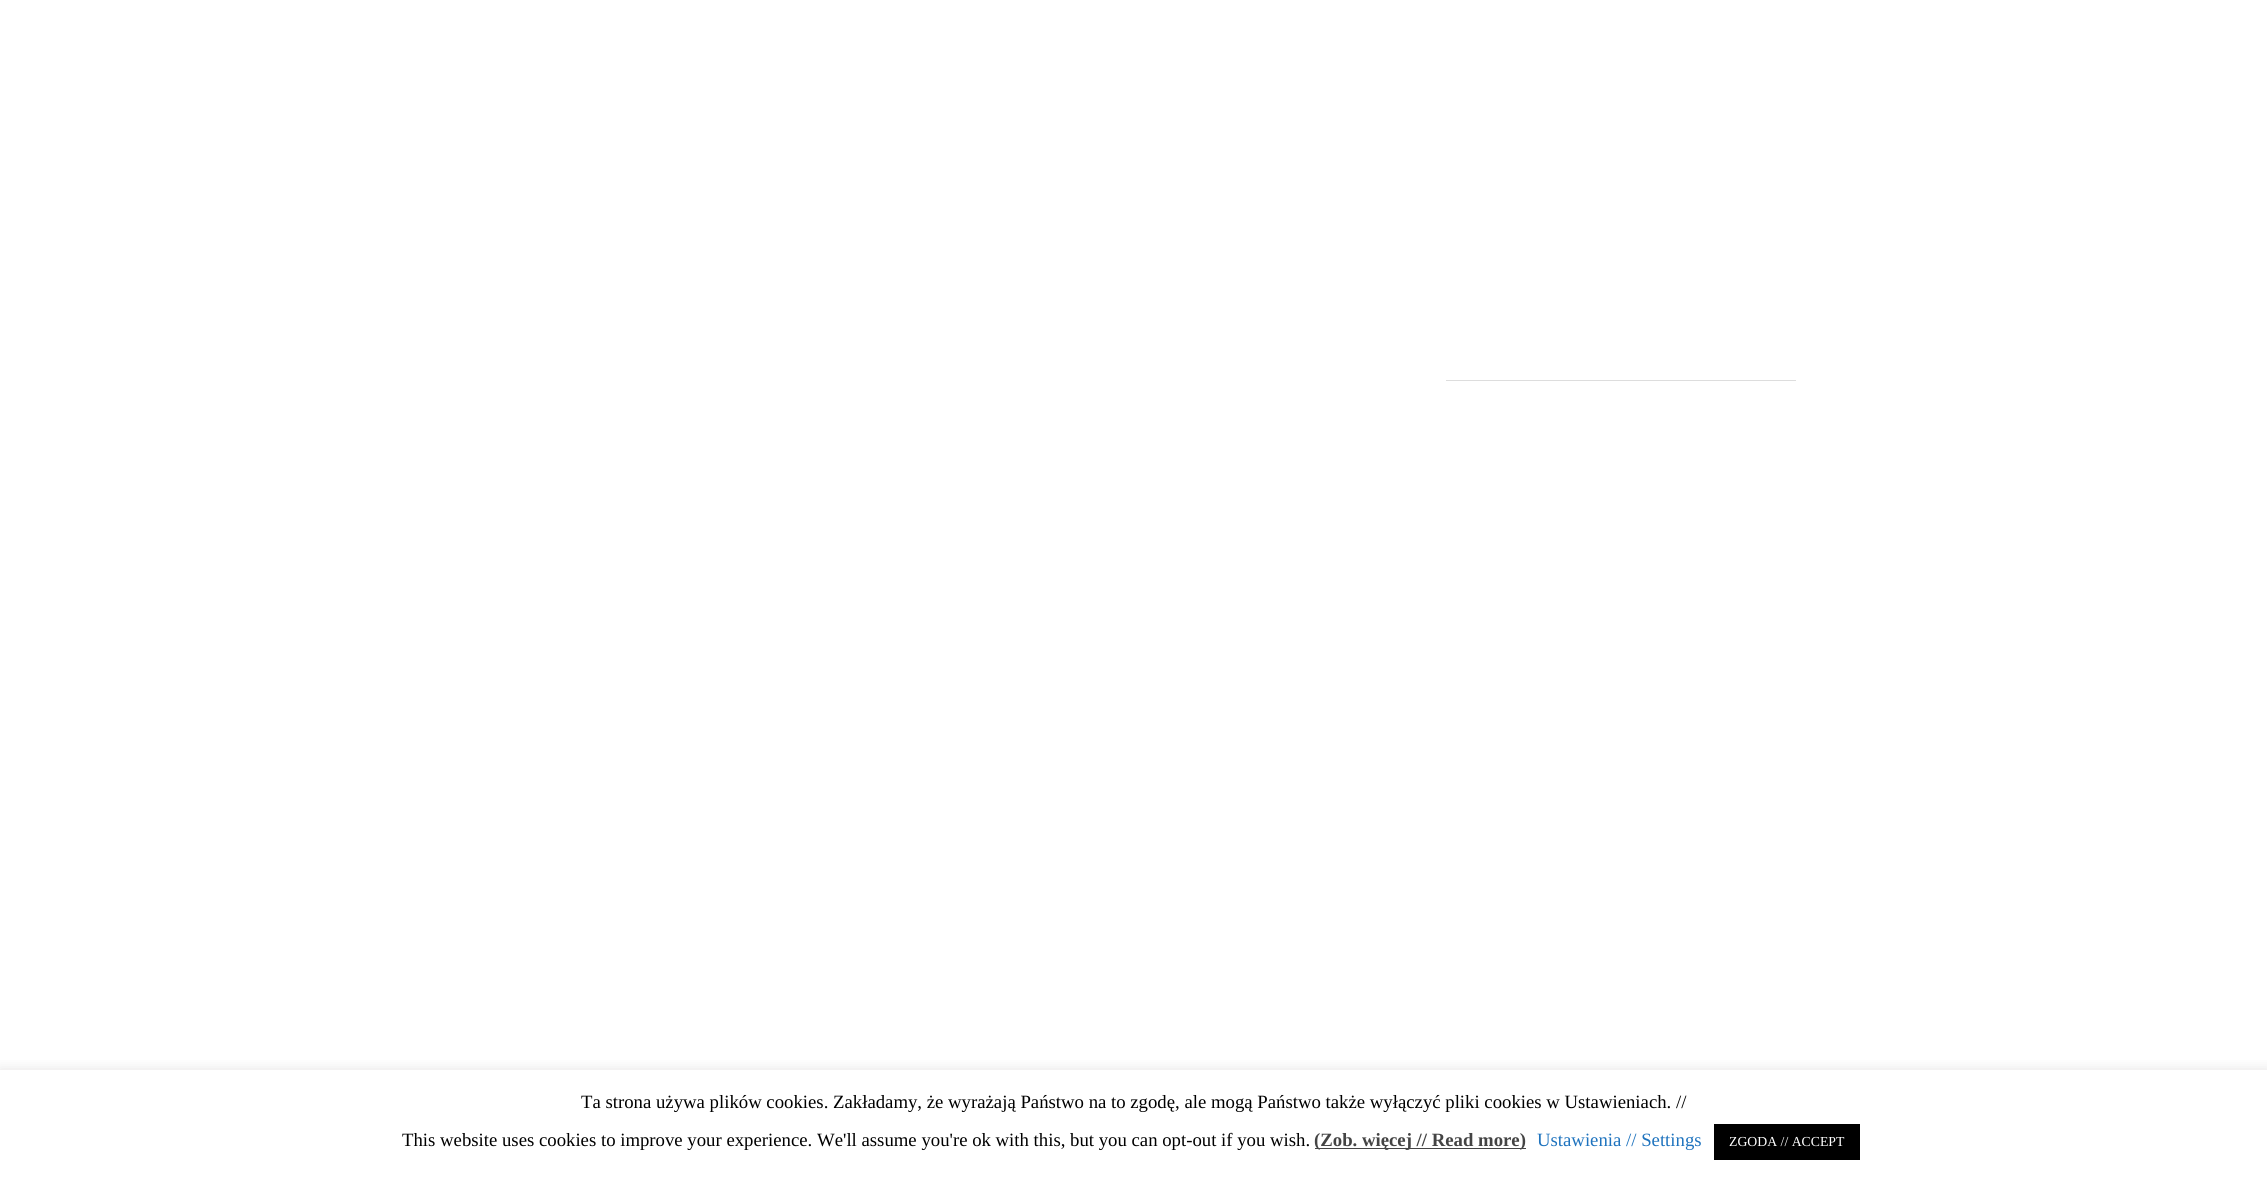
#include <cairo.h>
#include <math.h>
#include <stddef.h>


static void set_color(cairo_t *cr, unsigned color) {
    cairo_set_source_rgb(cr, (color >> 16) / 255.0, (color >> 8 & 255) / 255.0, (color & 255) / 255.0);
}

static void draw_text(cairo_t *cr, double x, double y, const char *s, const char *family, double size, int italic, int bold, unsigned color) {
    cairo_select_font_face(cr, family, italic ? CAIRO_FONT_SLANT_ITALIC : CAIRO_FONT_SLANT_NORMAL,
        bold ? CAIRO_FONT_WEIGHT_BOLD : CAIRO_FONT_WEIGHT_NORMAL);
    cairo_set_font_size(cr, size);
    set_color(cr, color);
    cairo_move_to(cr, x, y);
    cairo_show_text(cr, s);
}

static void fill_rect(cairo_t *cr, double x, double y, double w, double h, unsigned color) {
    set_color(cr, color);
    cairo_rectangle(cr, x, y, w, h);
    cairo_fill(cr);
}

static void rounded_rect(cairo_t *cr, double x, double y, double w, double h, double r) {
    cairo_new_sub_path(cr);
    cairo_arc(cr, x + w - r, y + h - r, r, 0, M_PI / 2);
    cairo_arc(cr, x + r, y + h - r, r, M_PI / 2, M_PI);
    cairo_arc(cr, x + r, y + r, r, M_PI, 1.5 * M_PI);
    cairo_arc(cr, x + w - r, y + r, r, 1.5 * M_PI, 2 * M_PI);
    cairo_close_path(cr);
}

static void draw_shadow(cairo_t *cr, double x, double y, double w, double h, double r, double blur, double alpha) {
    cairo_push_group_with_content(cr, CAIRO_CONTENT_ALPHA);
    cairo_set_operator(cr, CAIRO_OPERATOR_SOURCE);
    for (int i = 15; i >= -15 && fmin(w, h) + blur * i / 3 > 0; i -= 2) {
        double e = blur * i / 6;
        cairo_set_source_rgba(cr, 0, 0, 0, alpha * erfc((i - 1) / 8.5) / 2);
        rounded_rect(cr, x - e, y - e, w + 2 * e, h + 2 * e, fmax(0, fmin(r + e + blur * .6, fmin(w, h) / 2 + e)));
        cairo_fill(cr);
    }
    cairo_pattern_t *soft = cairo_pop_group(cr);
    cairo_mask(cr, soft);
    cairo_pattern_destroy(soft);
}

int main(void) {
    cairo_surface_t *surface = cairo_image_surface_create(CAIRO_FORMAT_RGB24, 2267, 1181);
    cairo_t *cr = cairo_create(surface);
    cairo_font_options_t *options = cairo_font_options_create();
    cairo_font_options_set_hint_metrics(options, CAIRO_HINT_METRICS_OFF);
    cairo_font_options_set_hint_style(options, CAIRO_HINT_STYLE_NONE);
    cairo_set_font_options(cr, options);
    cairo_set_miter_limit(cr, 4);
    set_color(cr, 0xFFFFFF);
    cairo_paint(cr);
    fill_rect(cr, 1446, 380, 350, 1, 0xDDDDDD);
    cairo_save(cr);
    cairo_rectangle(cr, 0, 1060, 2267, 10);
    cairo_clip(cr);
    set_color(cr, 0xACABAB);
    draw_shadow(cr, 0, 1069, 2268, 111, 0, 6, 0.3);
    cairo_restore(cr);
    draw_text(cr, 581, 1108, "Ta strona używa plików cookies. Zakładamy, że wyrażają Państwo na to zgodę, ale mogą Państwo także wyłączyć pliki cookies w Ustawieniach. //", "Liberation Serif", 18.75, 0, 0, 0x000000);
    draw_text(cr, 402, 1146, "This website uses cookies to improve your experience. We'll assume you're ok with this, but you can opt-out if you wish.", "Liberation Serif", 18.75, 0, 0, 0x000000);
    fill_rect(cr, 1315, 1148, 211, 1, 0x444444);
    draw_text(cr, 1314, 1146, "(Zob. więcej // Read more)", "Liberation Serif", 18.75, 0, 1, 0x444444);
    draw_text(cr, 1537, 1146, "Ustawienia // Settings", "Liberation Serif", 18.75, 0, 0, 0x1E73BE);
    fill_rect(cr, 1714, 1124, 146, 36, 0x000000);
    draw_text(cr, 1729, 1146, "ZGODA // ACCEPT", "Liberation Serif", 13.75, 0, 0, 0xFFFFFF);
    cairo_surface_write_to_png(surface, "output.png");
    cairo_font_options_destroy(options);
    cairo_destroy(cr);
    cairo_surface_destroy(surface);
    return 0;
}
